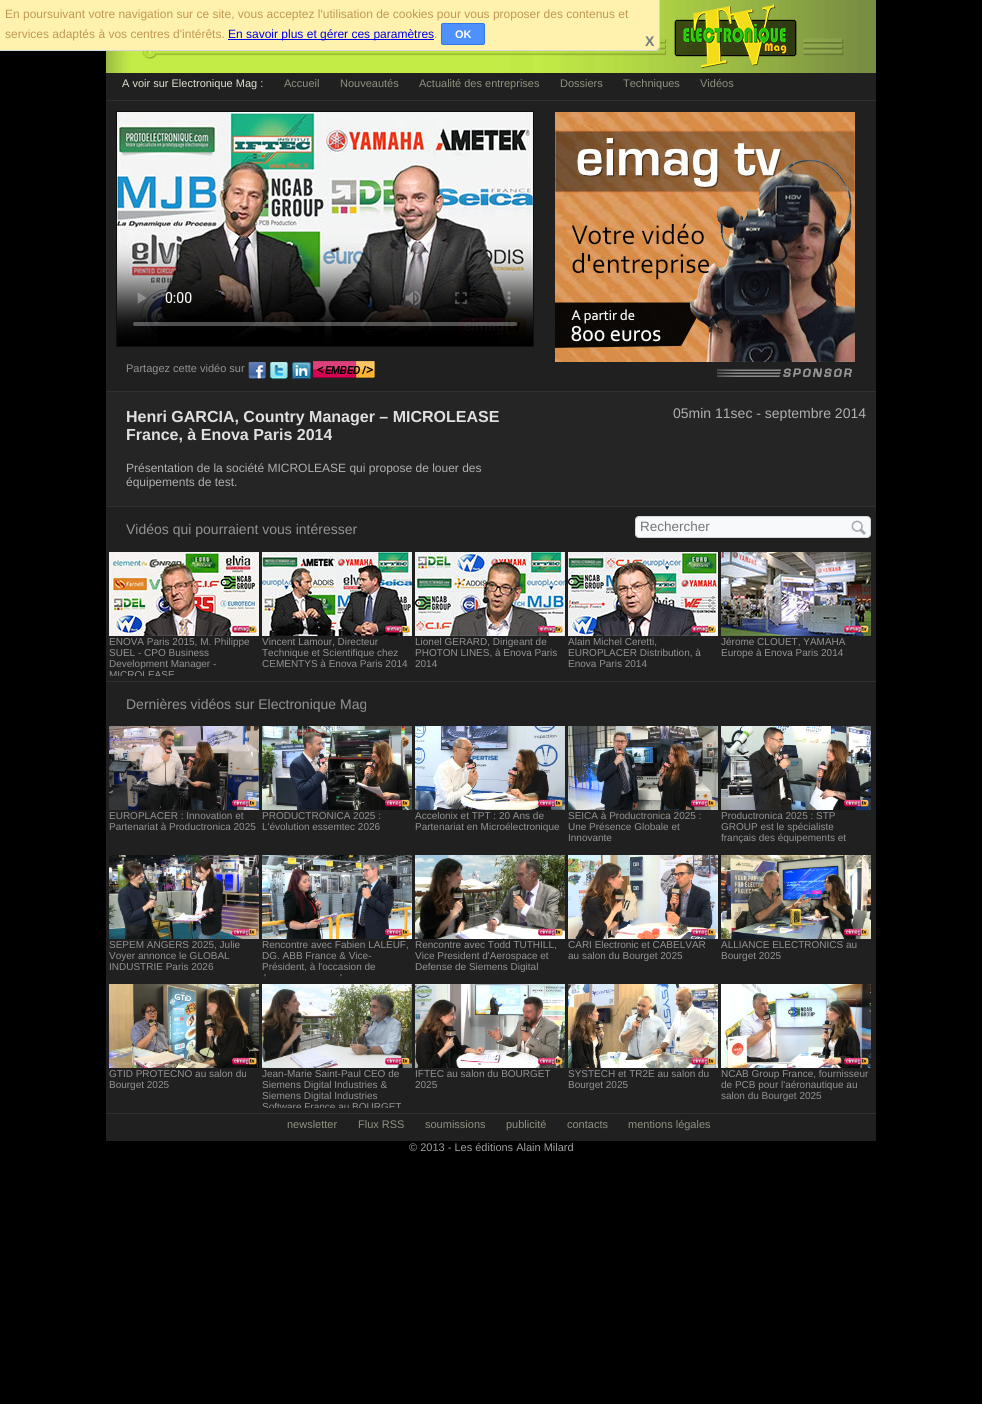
#include <cairo.h>
#include <math.h>
#include <stddef.h>


static void set_color(cairo_t *cr, unsigned color) {
    cairo_set_source_rgb(cr, (color >> 16) / 255.0, (color >> 8 & 255) / 255.0, (color & 255) / 255.0);
}

static void draw_text(cairo_t *cr, double x, double y, const char *s, const char *family, double size, int italic, int bold, unsigned color) {
    cairo_select_font_face(cr, family, italic ? CAIRO_FONT_SLANT_ITALIC : CAIRO_FONT_SLANT_NORMAL,
        bold ? CAIRO_FONT_WEIGHT_BOLD : CAIRO_FONT_WEIGHT_NORMAL);
    cairo_set_font_size(cr, size);
    set_color(cr, color);
    cairo_move_to(cr, x, y);
    cairo_show_text(cr, s);
}

static void fill_rect(cairo_t *cr, double x, double y, double w, double h, unsigned color) {
    set_color(cr, color);
    cairo_rectangle(cr, x, y, w, h);
    cairo_fill(cr);
}

static void rounded_rect(cairo_t *cr, double x, double y, double w, double h, double r) {
    cairo_new_sub_path(cr);
    cairo_arc(cr, x + w - r, y + h - r, r, 0, M_PI / 2);
    cairo_arc(cr, x + r, y + h - r, r, M_PI / 2, M_PI);
    cairo_arc(cr, x + r, y + r, r, M_PI, 1.5 * M_PI);
    cairo_arc(cr, x + w - r, y + r, r, 1.5 * M_PI, 2 * M_PI);
    cairo_close_path(cr);
}

static void draw_image(cairo_t *cr, const char *path, double x, double y, double w, double h) {
    cairo_surface_t *image = cairo_image_surface_create_from_png(path);
    cairo_save(cr);
    cairo_set_source_surface(cr, image, x, y);
    cairo_rectangle(cr, x, y, w, h);
    cairo_fill(cr);
    cairo_restore(cr);
    cairo_surface_destroy(image);
}

int main(void) {
    cairo_surface_t *surface = cairo_image_surface_create(CAIRO_FORMAT_RGB24, 982, 1404);
    cairo_t *cr = cairo_create(surface);
    cairo_font_options_t *options = cairo_font_options_create();
    cairo_font_options_set_hint_metrics(options, CAIRO_HINT_METRICS_OFF);
    cairo_font_options_set_hint_style(options, CAIRO_HINT_STYLE_NONE);
    cairo_set_font_options(cr, options);
    cairo_set_miter_limit(cr, 4);
    set_color(cr, 0x000000);
    cairo_paint(cr);
    draw_image(cr, "assets/img1.png", 106, 0, 770, 73);
    set_color(cr, 0xFFF1AE);
    cairo_new_path(cr);
    cairo_move_to(cr, 0, 0);
    cairo_line_to(cr, 659, 0);
    cairo_line_to(cr, 659, 47);
    cairo_curve_to(cr, 659, 48.5, 657.5, 50, 656, 50);
    cairo_line_to(cr, 0, 50);
    cairo_close_path(cr);
    cairo_fill(cr);
    set_color(cr, 0xD2D6DB);
    cairo_set_fill_rule(cr, CAIRO_FILL_RULE_EVEN_ODD);
    cairo_new_path(cr);
    cairo_move_to(cr, 0, 0);
    cairo_line_to(cr, 660, 0);
    cairo_line_to(cr, 660, 47);
    cairo_curve_to(cr, 660, 49, 658, 51, 656, 51);
    cairo_line_to(cr, 0, 51);
    cairo_close_path(cr);
    cairo_move_to(cr, 0, 0);
    cairo_line_to(cr, 659, 0);
    cairo_line_to(cr, 659, 47);
    cairo_curve_to(cr, 659, 49, 658, 50, 656, 50);
    cairo_line_to(cr, 0, 50);
    cairo_close_path(cr);
    cairo_fill(cr);
    draw_text(cr, 5, 18, "En poursuivant votre navigation sur ce site, vous acceptez l'utilisation de cookies pour vous proposer des contenus et", "Liberation Sans", 12, 0, 0, 0xC09853);
    draw_text(cr, 5, 38, "services adaptés à vos centres d'intérêts.", "Liberation Sans", 12, 0, 0, 0xC09853);
    fill_rect(cr, 228, 39, 206, 1, 0x0000EE);
    draw_text(cr, 228, 38, "En savoir plus et gérer ces paramètres", "Liberation Sans", 12, 0, 0, 0x0000EE);
    draw_text(cr, 434, 38, ".", "Liberation Sans", 12, 0, 0, 0xC09853);
    set_color(cr, 0x4D90FE);
    rounded_rect(cr, 441.5, 23.5, 43, 21, 1.5);
    cairo_fill_preserve(cr);
    set_color(cr, 0x3079ED);
    cairo_set_line_width(cr, 1);
    cairo_stroke(cr);
    draw_text(cr, 455, 38, "OK", "Liberation Sans", 11, 0, 1, 0xFFFFFF);
    draw_text(cr, 645, 46, "X", "Liberation Sans", 14, 0, 1, 0x747B83);
    fill_rect(cr, 106, 73, 770, 27, 0x202020);
    fill_rect(cr, 106, 100, 770, 1, 0x303030);
    draw_text(cr, 122, 87, "A voir sur Electronique Mag :", "Liberation Sans", 11, 0, 0, 0xE0E0D0);
    draw_text(cr, 284, 87, "Accueil", "Liberation Sans", 11, 0, 0, 0x909080);
    draw_text(cr, 340, 87, "Nouveautés", "Liberation Sans", 11, 0, 0, 0x909080);
    draw_text(cr, 419, 87, "Actualité des entreprises", "Liberation Sans", 11, 0, 0, 0x909080);
    draw_text(cr, 560, 87, "Dossiers", "Liberation Sans", 11, 0, 0, 0x909080);
    draw_text(cr, 623, 87, "Techniques", "Liberation Sans", 11, 0, 0, 0x909080);
    draw_text(cr, 700, 87, "Vidéos", "Liberation Sans", 11, 0, 0, 0x909080);
    fill_rect(cr, 106, 101, 770, 290, 0x202020);
    fill_rect(cr, 116, 111, 418, 236, 0x0F0F0F);
    draw_image(cr, "assets/img2.png", 117, 112, 416, 234);
    draw_text(cr, 126, 372, "Partagez cette vidéo sur", "Liberation Sans", 11, 0, 0, 0x939393);
    draw_image(cr, "assets/img3.png", 248, 362, 18, 18);
    draw_image(cr, "assets/img4.png", 270, 362, 18, 18);
    draw_image(cr, "assets/img5.png", 292, 362, 19, 17);
    draw_image(cr, "assets/img6.png", 313, 361, 62, 17);
    draw_image(cr, "assets/img7.png", 717, 368, 135, 9);
    draw_image(cr, "assets/img8.png", 555, 112, 300, 250);
    fill_rect(cr, 106, 392, 770, 114, 0x252525);
    fill_rect(cr, 106, 391, 770, 1, 0x303030);
    draw_text(cr, 126, 422, "Henri GARCIA, Country Manager – MICROLEASE", "Liberation Sans", 16, 0, 1, 0xE0E0E0);
    draw_text(cr, 126, 440, "France, à Enova Paris 2014", "Liberation Sans", 16, 0, 1, 0xE0E0E0);
    draw_text(cr, 126, 472, "Présentation de la société MICROLEASE qui propose de louer des", "Liberation Sans", 12, 0, 0, 0xB0B0B0);
    draw_text(cr, 126, 486, "équipements de test.", "Liberation Sans", 12, 0, 0, 0xB0B0B0);
    draw_text(cr, 673, 418, "05min 11sec - septembre 2014", "Liberation Sans", 14, 0, 0, 0xB0B0B0);
    fill_rect(cr, 106, 507, 770, 174, 0x202020);
    fill_rect(cr, 106, 506, 770, 1, 0x303030);
    draw_text(cr, 126, 534, "Vidéos qui pourraient vous intéresser", "Liberation Sans", 14, 0, 0, 0x939393);
    set_color(cr, 0xF8F9FB);
    rounded_rect(cr, 635.5, 516.5, 235, 21, 3.5);
    cairo_fill_preserve(cr);
    set_color(cr, 0xD2D6DB);
    cairo_stroke(cr);
    draw_text(cr, 640, 531, "Rechercher", "Liberation Sans", 13.5, 0, 0, 0x757575);
    draw_image(cr, "assets/img9.png", 851, 520, 15, 15);
    draw_image(cr, "assets/img10.png", 109, 552, 150, 84);
    draw_text(cr, 109, 645, "ENOVA Paris 2015, M. Philippe", "Liberation Sans", 10, 0, 0, 0x939393);
    draw_text(cr, 109, 656, "SUEL - CPO Business", "Liberation Sans", 10, 0, 0, 0x939393);
    draw_text(cr, 109, 667, "Development Manager -", "Liberation Sans", 10, 0, 0, 0x939393);
    cairo_save(cr);
    cairo_set_fill_rule(cr, CAIRO_FILL_RULE_WINDING);
    cairo_rectangle(cr, 109, 636, 150, 40);
    cairo_clip(cr);
    draw_text(cr, 109, 678, "MICROLEASE", "Liberation Sans", 10, 0, 0, 0x939393);
    cairo_restore(cr);
    draw_image(cr, "assets/img11.png", 262, 552, 150, 84);
    draw_text(cr, 262, 645, "Vincent Lamour, Directeur", "Liberation Sans", 10, 0, 0, 0x939393);
    draw_text(cr, 262, 656, "Technique et Scientifique chez", "Liberation Sans", 10, 0, 0, 0x939393);
    draw_text(cr, 262, 667, "CEMENTYS à Enova Paris 2014", "Liberation Sans", 10, 0, 0, 0x939393);
    draw_image(cr, "assets/img12.png", 415, 552, 150, 84);
    draw_text(cr, 415, 645, "Lionel GERARD, Dirigeant de", "Liberation Sans", 10, 0, 0, 0x939393);
    draw_text(cr, 415, 656, "PHOTON LINES, à Enova Paris", "Liberation Sans", 10, 0, 0, 0x939393);
    draw_text(cr, 415, 667, "2014", "Liberation Sans", 10, 0, 0, 0x939393);
    draw_image(cr, "assets/img13.png", 568, 552, 150, 84);
    draw_text(cr, 568, 645, "Alain Michel Ceretti,", "Liberation Sans", 10, 0, 0, 0x939393);
    draw_text(cr, 568, 656, "EUROPLACER Distribution, à", "Liberation Sans", 10, 0, 0, 0x939393);
    draw_text(cr, 568, 667, "Enova Paris 2014", "Liberation Sans", 10, 0, 0, 0x939393);
    draw_image(cr, "assets/img14.png", 721, 552, 150, 84);
    draw_text(cr, 721, 645, "Jérome CLOUET, YAMAHA", "Liberation Sans", 10, 0, 0, 0x939393);
    draw_text(cr, 721, 656, "Europe à Enova Paris 2014", "Liberation Sans", 10, 0, 0, 0x939393);
    fill_rect(cr, 106, 682, 770, 431, 0x202020);
    fill_rect(cr, 106, 681, 770, 1, 0x303030);
    draw_text(cr, 126, 709, "Dernières vidéos sur Electronique Mag", "Liberation Sans", 14, 0, 0, 0x939393);
    draw_image(cr, "assets/img15.png", 109, 726, 150, 84);
    draw_text(cr, 109, 819, "EUROPLACER : Innovation et", "Liberation Sans", 10, 0, 0, 0x939393);
    draw_text(cr, 109, 830, "Partenariat à Productronica 2025", "Liberation Sans", 10, 0, 0, 0x939393);
    draw_image(cr, "assets/img16.png", 262, 726, 150, 84);
    draw_text(cr, 262, 819, "PRODUCTRONICA 2025 :", "Liberation Sans", 10, 0, 0, 0x939393);
    draw_text(cr, 262, 830, "L'évolution essemtec 2026", "Liberation Sans", 10, 0, 0, 0x939393);
    draw_image(cr, "assets/img17.png", 415, 726, 150, 84);
    draw_text(cr, 415, 819, "Accelonix et TPT : 20 Ans de", "Liberation Sans", 10, 0, 0, 0x939393);
    draw_text(cr, 415, 830, "Partenariat en Microélectronique", "Liberation Sans", 10, 0, 0, 0x939393);
    draw_image(cr, "assets/img18.png", 568, 726, 150, 84);
    draw_text(cr, 568, 819, "SEICA à Productronica 2025 :", "Liberation Sans", 10, 0, 0, 0x939393);
    draw_text(cr, 568, 830, "Une Présence Globale et", "Liberation Sans", 10, 0, 0, 0x939393);
    draw_text(cr, 568, 841, "Innovante", "Liberation Sans", 10, 0, 0, 0x939393);
    draw_image(cr, "assets/img19.png", 721, 726, 150, 84);
    draw_text(cr, 721, 819, "Productronica 2025 : STP", "Liberation Sans", 10, 0, 0, 0x939393);
    draw_text(cr, 721, 830, "GROUP est le spécialiste", "Liberation Sans", 10, 0, 0, 0x939393);
    draw_text(cr, 721, 841, "français des équipements et", "Liberation Sans", 10, 0, 0, 0x939393);
    draw_image(cr, "assets/img20.png", 109, 855, 150, 84);
    draw_text(cr, 109, 948, "SEPEM ANGERS 2025, Julie", "Liberation Sans", 10, 0, 0, 0x939393);
    draw_text(cr, 109, 959, "Voyer annonce le GLOBAL", "Liberation Sans", 10, 0, 0, 0x939393);
    draw_text(cr, 109, 970, "INDUSTRIE Paris 2026", "Liberation Sans", 10, 0, 0, 0x939393);
    draw_image(cr, "assets/img21.png", 262, 855, 150, 84);
    draw_text(cr, 262, 948, "Rencontre avec Fabien LALEUF,", "Liberation Sans", 10, 0, 0, 0x939393);
    draw_text(cr, 262, 959, "DG. ABB France & Vice-", "Liberation Sans", 10, 0, 0, 0x939393);
    draw_text(cr, 262, 970, "Président, à l'occasion de", "Liberation Sans", 10, 0, 0, 0x939393);
    draw_text(cr, 264, 981, "'", "Liberation Sans", 10, 0, 0, 0x939393);
    draw_text(cr, 340, 981, "'", "Liberation Sans", 10, 0, 0, 0x939393);
    draw_image(cr, "assets/img22.png", 415, 855, 150, 84);
    draw_text(cr, 415, 948, "Rencontre avec Todd TUTHILL,", "Liberation Sans", 10, 0, 0, 0x939393);
    draw_text(cr, 415, 959, "Vice President d'Aerospace et", "Liberation Sans", 10, 0, 0, 0x939393);
    draw_text(cr, 415, 970, "Defense de Siemens Digital", "Liberation Sans", 10, 0, 0, 0x939393);
    draw_image(cr, "assets/img23.png", 568, 855, 150, 84);
    draw_text(cr, 568, 948, "CARI Electronic et CABELVAR", "Liberation Sans", 10, 0, 0, 0x939393);
    draw_text(cr, 568, 959, "au salon du Bourget 2025", "Liberation Sans", 10, 0, 0, 0x939393);
    draw_image(cr, "assets/img24.png", 721, 855, 150, 84);
    draw_text(cr, 721, 948, "ALLIANCE ELECTRONICS au", "Liberation Sans", 10, 0, 0, 0x939393);
    draw_text(cr, 721, 959, "Bourget 2025", "Liberation Sans", 10, 0, 0, 0x939393);
    draw_image(cr, "assets/img25.png", 109, 984, 150, 84);
    draw_text(cr, 109, 1077, "GTID PROTECNO au salon du", "Liberation Sans", 10, 0, 0, 0x939393);
    draw_text(cr, 109, 1088, "Bourget 2025", "Liberation Sans", 10, 0, 0, 0x939393);
    draw_image(cr, "assets/img26.png", 262, 984, 150, 84);
    draw_text(cr, 262, 1077, "Jean-Marie Saint-Paul CEO de", "Liberation Sans", 10, 0, 0, 0x939393);
    draw_text(cr, 262, 1088, "Siemens Digital Industries &", "Liberation Sans", 10, 0, 0, 0x939393);
    draw_text(cr, 262, 1099, "Siemens Digital Industries", "Liberation Sans", 10, 0, 0, 0x939393);
    cairo_save(cr);
    cairo_set_fill_rule(cr, CAIRO_FILL_RULE_WINDING);
    cairo_rectangle(cr, 262, 1068, 150, 40);
    cairo_clip(cr);
    draw_text(cr, 262, 1110, "Software France au BOURGET", "Liberation Sans", 10, 0, 0, 0x939393);
    cairo_restore(cr);
    draw_image(cr, "assets/img27.png", 415, 984, 150, 84);
    draw_text(cr, 415, 1077, "IFTEC au salon du BOURGET", "Liberation Sans", 10, 0, 0, 0x939393);
    draw_text(cr, 415, 1088, "2025", "Liberation Sans", 10, 0, 0, 0x939393);
    draw_image(cr, "assets/img28.png", 568, 984, 150, 84);
    draw_text(cr, 568, 1077, "SYSTECH et TR2E au salon du", "Liberation Sans", 10, 0, 0, 0x939393);
    draw_text(cr, 568, 1088, "Bourget 2025", "Liberation Sans", 10, 0, 0, 0x939393);
    draw_image(cr, "assets/img29.png", 721, 984, 150, 84);
    draw_text(cr, 721, 1077, "NCAB Group France, fournisseur", "Liberation Sans", 10, 0, 0, 0x939393);
    draw_text(cr, 721, 1088, "de PCB pour l'aéronautique au", "Liberation Sans", 10, 0, 0, 0x939393);
    draw_text(cr, 721, 1099, "salon du Bourget 2025", "Liberation Sans", 10, 0, 0, 0x939393);
    fill_rect(cr, 106, 1114, 770, 27, 0x202020);
    fill_rect(cr, 106, 1113, 770, 1, 0x303030);
    draw_text(cr, 287, 1128, "newsletter", "Liberation Sans", 11, 0, 0, 0x909080);
    draw_text(cr, 358, 1128, "Flux RSS", "Liberation Sans", 11, 0, 0, 0x909080);
    draw_text(cr, 425, 1128, "soumissions", "Liberation Sans", 11, 0, 0, 0x909080);
    draw_text(cr, 506, 1128, "publicité", "Liberation Sans", 11, 0, 0, 0x909080);
    draw_text(cr, 567, 1128, "contacts", "Liberation Sans", 11, 0, 0, 0x909080);
    draw_text(cr, 628, 1128, "mentions légales", "Liberation Sans", 11, 0, 0, 0x909080);
    draw_text(cr, 409, 1151, "© 2013 - Les éditions Alain Milard", "Liberation Sans", 11, 0, 0, 0xA0A0A0);
    cairo_surface_write_to_png(surface, "output.png");
    cairo_font_options_destroy(options);
    cairo_destroy(cr);
    cairo_surface_destroy(surface);
    return 0;
}
